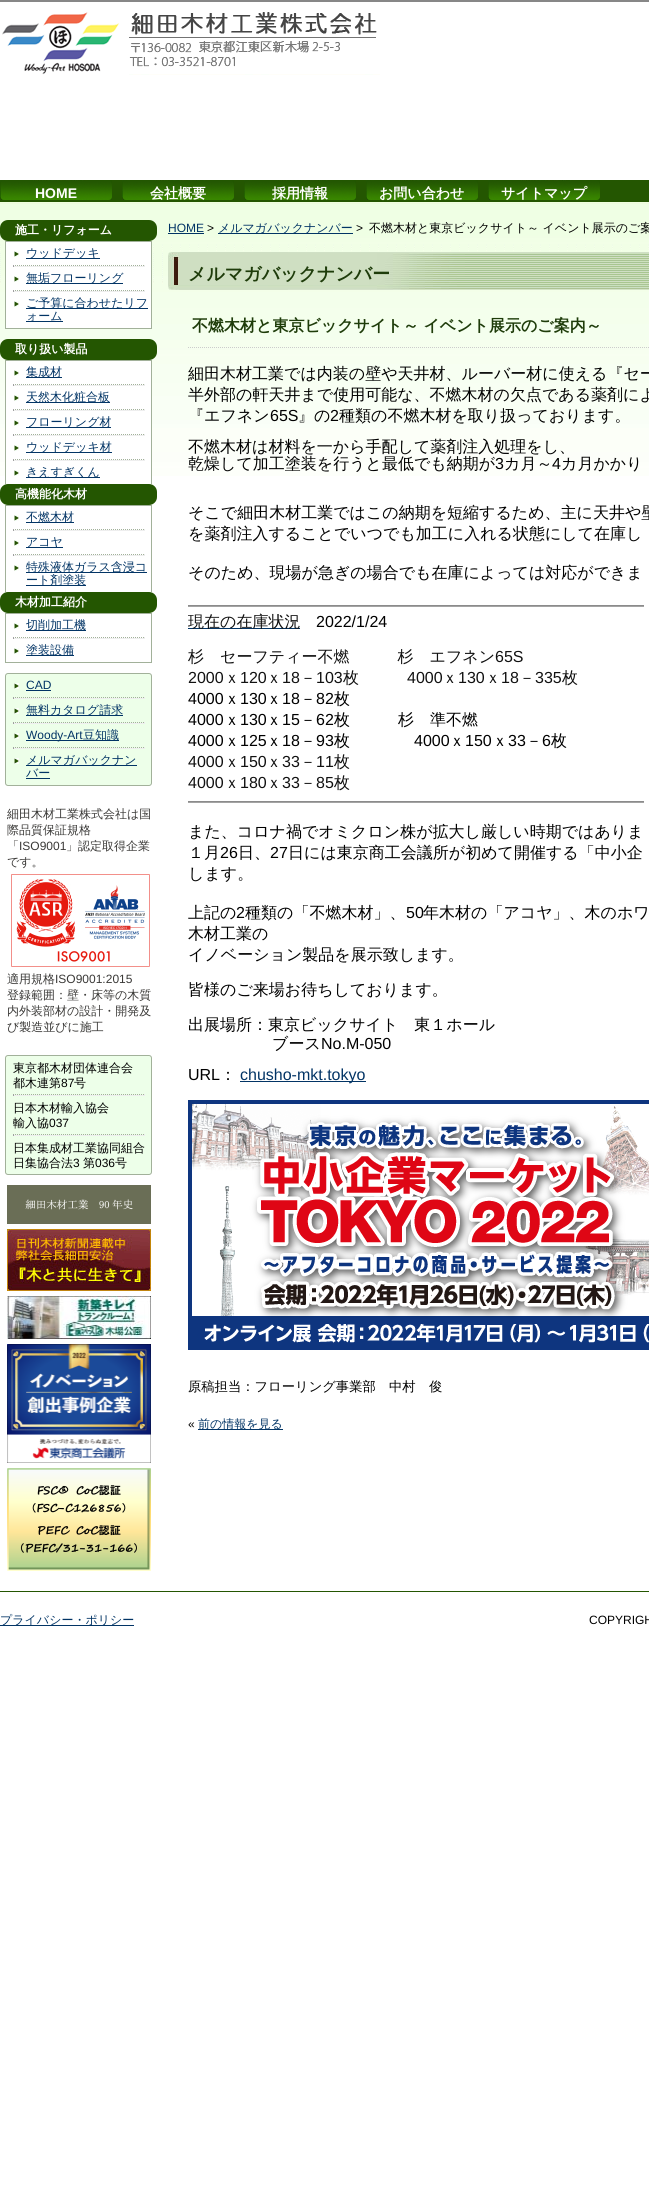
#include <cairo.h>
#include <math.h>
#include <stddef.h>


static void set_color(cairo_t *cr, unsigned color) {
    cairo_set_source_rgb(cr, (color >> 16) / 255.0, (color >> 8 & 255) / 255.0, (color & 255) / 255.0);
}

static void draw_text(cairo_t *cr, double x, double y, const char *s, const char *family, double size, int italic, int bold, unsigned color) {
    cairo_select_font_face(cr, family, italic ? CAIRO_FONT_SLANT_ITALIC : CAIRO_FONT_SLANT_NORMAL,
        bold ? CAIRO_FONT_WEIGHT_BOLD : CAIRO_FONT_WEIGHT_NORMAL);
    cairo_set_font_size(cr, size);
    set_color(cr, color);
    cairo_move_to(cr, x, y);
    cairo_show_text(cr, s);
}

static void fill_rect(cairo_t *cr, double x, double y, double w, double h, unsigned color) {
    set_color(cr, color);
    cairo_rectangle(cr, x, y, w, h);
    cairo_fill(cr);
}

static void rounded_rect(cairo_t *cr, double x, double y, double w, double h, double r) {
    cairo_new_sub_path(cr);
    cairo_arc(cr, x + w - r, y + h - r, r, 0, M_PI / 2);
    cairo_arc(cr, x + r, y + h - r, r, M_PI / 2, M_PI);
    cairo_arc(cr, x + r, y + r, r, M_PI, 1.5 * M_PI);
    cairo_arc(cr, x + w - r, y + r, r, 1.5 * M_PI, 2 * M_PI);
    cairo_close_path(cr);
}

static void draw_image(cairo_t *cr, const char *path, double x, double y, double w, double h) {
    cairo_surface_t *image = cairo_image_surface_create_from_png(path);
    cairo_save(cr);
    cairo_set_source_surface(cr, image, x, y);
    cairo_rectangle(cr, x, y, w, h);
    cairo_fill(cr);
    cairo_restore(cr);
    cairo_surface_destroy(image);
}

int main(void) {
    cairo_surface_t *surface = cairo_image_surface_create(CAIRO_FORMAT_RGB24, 649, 2200);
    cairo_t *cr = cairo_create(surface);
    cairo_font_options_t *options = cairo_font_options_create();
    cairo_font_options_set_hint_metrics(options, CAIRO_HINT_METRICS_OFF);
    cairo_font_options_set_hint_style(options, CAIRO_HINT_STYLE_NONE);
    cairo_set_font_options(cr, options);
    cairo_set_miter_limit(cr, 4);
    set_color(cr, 0xFFFFFF);
    cairo_paint(cr);
    fill_rect(cr, 0, 0, 649, 2, 0x878787);
    draw_image(cr, "assets/img1.png", 2, 12, 378, 63);
    fill_rect(cr, 0, 180, 649, 22, 0x245601);
    draw_image(cr, "assets/img2.png", 0, 180, 112, 20);
    draw_text(cr, 35, 198, "HOME", "Liberation Sans", 14, 0, 1, 0xFFFFFF);
    draw_image(cr, "assets/img2.png", 122, 180, 112, 20);
    draw_text(cr, 150, 198, "会社概要", "WenQuanYi Zen Hei", 14, 0, 1, 0xFFFFFF);
    draw_image(cr, "assets/img2.png", 244, 180, 112, 20);
    draw_text(cr, 272, 198, "採用情報", "WenQuanYi Zen Hei", 14, 0, 1, 0xFFFFFF);
    draw_image(cr, "assets/img2.png", 366, 180, 112, 20);
    draw_text(cr, 379, 198, "お問い合わせ", "WenQuanYi Zen Hei", 14, 0, 1, 0xFFFFFF);
    draw_image(cr, "assets/img2.png", 488, 180, 112, 20);
    draw_text(cr, 501, 198, "サイトマップ", "WenQuanYi Zen Hei", 14, 0, 1, 0xFFFFFF);
    draw_image(cr, "assets/img3.png", 0, 202, 649, 274);
    set_color(cr, 0x245601);
    rounded_rect(cr, 0, 220, 157, 21, 8);
    cairo_fill(cr);
    draw_text(cr, 15, 234, "施工・リフォーム", "WenQuanYi Zen Hei", 12, 0, 1, 0xFFFFFF);
    cairo_rectangle(cr, 5.5, 241.5, 146, 87);
    cairo_fill_preserve(cr);
    set_color(cr, 0xA2B19A);
    cairo_set_line_width(cr, 1);
    cairo_stroke(cr);
    draw_image(cr, "assets/img4.png", 14, 251, 5, 6);
    fill_rect(cr, 26, 258, 74, 1, 0x023465);
    draw_text(cr, 26, 257, "ウッドデッキ", "WenQuanYi Zen Hei Medium", 12, 0, 0, 0x023465);
    cairo_new_path(cr);
    cairo_move_to(cr, 13, 265.5);
    cairo_line_to(cr, 145, 265.5);
    set_color(cr, 0xA2B19A);
    cairo_set_dash(cr, (double[]){1, 1}, 2, 0);
    cairo_stroke(cr);
    fill_rect(cr, 144, 265, 1, 2, 0xEEEEEE);
    fill_rect(cr, 13, 266, 132, 1, 0xEEEEEE);
    fill_rect(cr, 13, 265, 1, 2, 0x9F9F9F);
    draw_image(cr, "assets/img4.png", 14, 276, 5, 6);
    fill_rect(cr, 26, 283, 97, 1, 0x023465);
    draw_text(cr, 26, 282, "無垢フローリング", "WenQuanYi Zen Hei Medium", 12, 0, 0, 0x023465);
    cairo_new_path(cr);
    cairo_move_to(cr, 13, 290.5);
    cairo_line_to(cr, 145, 290.5);
    set_color(cr, 0xA2B19A);
    cairo_stroke(cr);
    fill_rect(cr, 144, 290, 1, 2, 0xEEEEEE);
    fill_rect(cr, 13, 291, 132, 1, 0xEEEEEE);
    fill_rect(cr, 13, 290, 1, 2, 0x9F9F9F);
    draw_image(cr, "assets/img4.png", 14, 301, 5, 6);
    fill_rect(cr, 26, 308, 122, 1, 0x023465);
    draw_text(cr, 26, 307, "ご予算に合わせたリフ", "WenQuanYi Zen Hei Medium", 12, 0, 0, 0x023465);
    fill_rect(cr, 26, 321, 37, 1, 0x023465);
    draw_text(cr, 26, 320, "ォーム", "WenQuanYi Zen Hei Medium", 12, 0, 0, 0x023465);
    set_color(cr, 0x245601);
    rounded_rect(cr, 0, 339, 157, 21, 8);
    cairo_fill(cr);
    draw_text(cr, 15, 353, "取り扱い製品", "WenQuanYi Zen Hei", 12, 0, 1, 0xFFFFFF);
    fill_rect(cr, 6, 361, 145, 115, 0xFFFFFF);
    fill_rect(cr, 5, 360, 147, 1, 0xA2B19A);
    fill_rect(cr, 151, 360, 1, 124, 0xA2B19A);
    fill_rect(cr, 5, 360, 1, 124, 0xA2B19A);
    draw_image(cr, "assets/img4.png", 14, 370, 5, 6);
    fill_rect(cr, 26, 377, 36, 1, 0x023465);
    draw_text(cr, 26, 376, "集成材", "WenQuanYi Zen Hei Medium", 12, 0, 0, 0x023465);
    cairo_new_path(cr);
    cairo_move_to(cr, 13, 384.5);
    cairo_line_to(cr, 145, 384.5);
    set_color(cr, 0xA2B19A);
    cairo_stroke(cr);
    fill_rect(cr, 144, 384, 1, 2, 0xEEEEEE);
    fill_rect(cr, 13, 385, 132, 1, 0xEEEEEE);
    fill_rect(cr, 13, 384, 1, 2, 0x9F9F9F);
    draw_image(cr, "assets/img4.png", 14, 395, 5, 6);
    fill_rect(cr, 26, 402, 84, 1, 0x023465);
    draw_text(cr, 26, 401, "天然木化粧合板", "WenQuanYi Zen Hei Medium", 12, 0, 0, 0x023465);
    cairo_new_path(cr);
    cairo_move_to(cr, 13, 409.5);
    cairo_line_to(cr, 145, 409.5);
    set_color(cr, 0xA2B19A);
    cairo_stroke(cr);
    fill_rect(cr, 144, 409, 1, 2, 0xEEEEEE);
    fill_rect(cr, 13, 410, 132, 1, 0xEEEEEE);
    fill_rect(cr, 13, 409, 1, 2, 0x9F9F9F);
    draw_image(cr, "assets/img4.png", 14, 420, 5, 6);
    fill_rect(cr, 26, 427, 85, 1, 0x023465);
    draw_text(cr, 26, 426, "フローリング材", "WenQuanYi Zen Hei Medium", 12, 0, 0, 0x023465);
    cairo_new_path(cr);
    cairo_move_to(cr, 13, 434.5);
    cairo_line_to(cr, 145, 434.5);
    set_color(cr, 0xA2B19A);
    cairo_stroke(cr);
    fill_rect(cr, 144, 434, 1, 2, 0xEEEEEE);
    fill_rect(cr, 13, 435, 132, 1, 0xEEEEEE);
    fill_rect(cr, 13, 434, 1, 2, 0x9F9F9F);
    draw_image(cr, "assets/img4.png", 14, 445, 5, 6);
    fill_rect(cr, 26, 452, 86, 1, 0x023465);
    draw_text(cr, 26, 451, "ウッドデッキ材", "WenQuanYi Zen Hei Medium", 12, 0, 0, 0x023465);
    cairo_new_path(cr);
    cairo_move_to(cr, 13, 459.5);
    cairo_line_to(cr, 145, 459.5);
    set_color(cr, 0xA2B19A);
    cairo_stroke(cr);
    fill_rect(cr, 144, 459, 1, 2, 0xEEEEEE);
    fill_rect(cr, 13, 460, 132, 1, 0xEEEEEE);
    fill_rect(cr, 13, 459, 1, 2, 0x9F9F9F);
    draw_image(cr, "assets/img4.png", 14, 470, 5, 6);
    fill_rect(cr, 26, 477, 74, 1, 0x023465);
    draw_text(cr, 26, 476, "きえすぎくん", "WenQuanYi Zen Hei Medium", 12, 0, 0, 0x023465);
    set_color(cr, 0x245601);
    rounded_rect(cr, 0, 484, 157, 21, 8);
    cairo_fill(cr);
    draw_text(cr, 15, 498, "高機能化木材", "WenQuanYi Zen Hei", 12, 0, 1, 0xFFFFFF);
    fill_rect(cr, 5, 505, 147, 1, 0xA2B19A);
    fill_rect(cr, 151, 505, 1, 87, 0xA2B19A);
    fill_rect(cr, 5, 505, 1, 87, 0xA2B19A);
    draw_image(cr, "assets/img4.png", 14, 515, 5, 6);
    fill_rect(cr, 26, 522, 48, 1, 0x023465);
    draw_text(cr, 26, 521, "不燃木材", "WenQuanYi Zen Hei Medium", 12, 0, 0, 0x023465);
    cairo_new_path(cr);
    cairo_move_to(cr, 13, 529.5);
    cairo_line_to(cr, 145, 529.5);
    set_color(cr, 0xA2B19A);
    cairo_stroke(cr);
    fill_rect(cr, 144, 529, 1, 2, 0xEEEEEE);
    fill_rect(cr, 13, 530, 132, 1, 0xEEEEEE);
    fill_rect(cr, 13, 529, 1, 2, 0x9F9F9F);
    draw_image(cr, "assets/img4.png", 14, 540, 5, 6);
    fill_rect(cr, 26, 547, 37, 1, 0x023465);
    draw_text(cr, 26, 546, "アコヤ", "WenQuanYi Zen Hei Medium", 12, 0, 0, 0x023465);
    cairo_new_path(cr);
    cairo_move_to(cr, 13, 554.5);
    cairo_line_to(cr, 145, 554.5);
    set_color(cr, 0xA2B19A);
    cairo_stroke(cr);
    fill_rect(cr, 144, 554, 1, 2, 0xEEEEEE);
    fill_rect(cr, 13, 555, 132, 1, 0xEEEEEE);
    fill_rect(cr, 13, 554, 1, 2, 0x9F9F9F);
    draw_image(cr, "assets/img4.png", 14, 565, 5, 6);
    fill_rect(cr, 26, 572, 121, 1, 0x023465);
    draw_text(cr, 26, 571, "特殊液体ガラス含浸コ", "WenQuanYi Zen Hei Medium", 12, 0, 0, 0x023465);
    fill_rect(cr, 26, 585, 60, 1, 0x023465);
    draw_text(cr, 26, 584, "ート剤塗装", "WenQuanYi Zen Hei Medium", 12, 0, 0, 0x023465);
    set_color(cr, 0x245601);
    rounded_rect(cr, 0, 592, 157, 21, 8);
    cairo_fill(cr);
    draw_text(cr, 15, 606, "木材加工紹介", "WenQuanYi Zen Hei", 12, 0, 1, 0xFFFFFF);
    cairo_rectangle(cr, 5.5, 613.5, 146, 49);
    set_color(cr, 0xA2B19A);
    cairo_set_dash(cr, NULL, 0, 0);
    cairo_stroke(cr);
    draw_image(cr, "assets/img4.png", 14, 623, 5, 6);
    fill_rect(cr, 26, 630, 60, 1, 0x023465);
    draw_text(cr, 26, 629, "切削加工機", "WenQuanYi Zen Hei Medium", 12, 0, 0, 0x023465);
    cairo_new_path(cr);
    cairo_move_to(cr, 13, 637.5);
    cairo_line_to(cr, 145, 637.5);
    set_color(cr, 0xA2B19A);
    cairo_set_dash(cr, (double[]){1, 1}, 2, 0);
    cairo_stroke(cr);
    fill_rect(cr, 144, 637, 1, 2, 0xEEEEEE);
    fill_rect(cr, 13, 638, 132, 1, 0xEEEEEE);
    fill_rect(cr, 13, 637, 1, 2, 0x9F9F9F);
    draw_image(cr, "assets/img4.png", 14, 648, 5, 6);
    fill_rect(cr, 26, 655, 48, 1, 0x023465);
    draw_text(cr, 26, 654, "塗装設備", "WenQuanYi Zen Hei Medium", 12, 0, 0, 0x023465);
    set_color(cr, 0xEDFFE9);
    rounded_rect(cr, 5.5, 673.5, 146, 112, 2.5);
    cairo_fill_preserve(cr);
    set_color(cr, 0xA2B19A);
    cairo_set_dash(cr, NULL, 0, 0);
    cairo_stroke(cr);
    draw_image(cr, "assets/img4.png", 14, 683, 5, 6);
    draw_text(cr, 26, 689, "CAD", "Liberation Sans", 12, 0, 0, 0x023465);
    fill_rect(cr, 26, 690, 25, 1, 0x023465);
    cairo_new_path(cr);
    cairo_move_to(cr, 13, 697.5);
    cairo_line_to(cr, 145, 697.5);
    set_color(cr, 0xA2B19A);
    cairo_set_dash(cr, (double[]){1, 1}, 2, 0);
    cairo_stroke(cr);
    fill_rect(cr, 144, 697, 1, 2, 0xEEEEEE);
    fill_rect(cr, 13, 698, 132, 1, 0xEEEEEE);
    fill_rect(cr, 13, 697, 1, 2, 0x9F9F9F);
    draw_image(cr, "assets/img4.png", 14, 708, 5, 6);
    fill_rect(cr, 26, 715, 97, 1, 0x023465);
    draw_text(cr, 26, 714, "無料カタログ請求", "WenQuanYi Zen Hei Medium", 12, 0, 0, 0x023465);
    cairo_new_path(cr);
    cairo_move_to(cr, 13, 722.5);
    cairo_line_to(cr, 145, 722.5);
    set_color(cr, 0xA2B19A);
    cairo_stroke(cr);
    fill_rect(cr, 144, 722, 1, 2, 0xEEEEEE);
    fill_rect(cr, 13, 723, 132, 1, 0xEEEEEE);
    fill_rect(cr, 13, 722, 1, 2, 0x9F9F9F);
    draw_image(cr, "assets/img4.png", 14, 733, 5, 6);
    fill_rect(cr, 26, 740, 93, 1, 0x023465);
    draw_text(cr, 26, 739, "Woody-Art", "Liberation Sans", 12, 0, 0, 0x023465);
    draw_text(cr, 83, 739, "豆知識", "WenQuanYi Zen Hei Medium", 12, 0, 0, 0x023465);
    cairo_new_path(cr);
    cairo_move_to(cr, 13, 747.5);
    cairo_line_to(cr, 145, 747.5);
    set_color(cr, 0xA2B19A);
    cairo_stroke(cr);
    fill_rect(cr, 144, 747, 1, 2, 0xEEEEEE);
    fill_rect(cr, 13, 748, 132, 1, 0xEEEEEE);
    fill_rect(cr, 13, 747, 1, 2, 0x9F9F9F);
    draw_image(cr, "assets/img4.png", 14, 758, 5, 6);
    fill_rect(cr, 26, 765, 111, 1, 0x023465);
    draw_text(cr, 26, 764, "メルマガバックナン", "WenQuanYi Zen Hei Medium", 12, 0, 0, 0x023465);
    draw_text(cr, 26, 777, "バー", "WenQuanYi Zen Hei Medium", 12, 0, 0, 0x023465);
    fill_rect(cr, 26, 778, 24, 1, 0x023465);
    draw_text(cr, 7, 818, "細田木材工業株式会社は国", "WenQuanYi Zen Hei Medium", 12, 0, 0, 0x3A3937);
    draw_text(cr, 7, 834, "際品質保証規格", "WenQuanYi Zen Hei Medium", 12, 0, 0, 0x3A3937);
    draw_text(cr, 7, 850, "「", "WenQuanYi Zen Hei Medium", 12, 0, 0, 0x3A3937);
    draw_text(cr, 19, 850, "ISO9001", "Liberation Sans", 12, 0, 0, 0x3A3937);
    draw_text(cr, 66, 850, "」認定取得企業", "WenQuanYi Zen Hei Medium", 12, 0, 0, 0x3A3937);
    draw_text(cr, 7, 866, "です。", "WenQuanYi Zen Hei Medium", 12, 0, 0, 0x3A3937);
    draw_image(cr, "assets/img5.png", 11, 874, 139, 93);
    draw_text(cr, 7, 983, "適用規格", "WenQuanYi Zen Hei Medium", 12, 0, 0, 0x3A3937);
    draw_text(cr, 55, 983, "ISO9001:2015", "Liberation Sans", 12, 0, 0, 0x3A3937);
    draw_text(cr, 7, 999, "登録範囲：壁・床等の木質", "WenQuanYi Zen Hei Medium", 12, 0, 0, 0x3A3937);
    draw_text(cr, 7, 1015, "内外装部材の設計・開発及", "WenQuanYi Zen Hei Medium", 12, 0, 0, 0x3A3937);
    draw_text(cr, 7, 1031, "び製造並びに施工", "WenQuanYi Zen Hei Medium", 12, 0, 0, 0x3A3937);
    set_color(cr, 0xEDFFE9);
    rounded_rect(cr, 5.5, 1055.5, 146, 119, 2.5);
    cairo_fill_preserve(cr);
    set_color(cr, 0xA2B19A);
    cairo_set_dash(cr, NULL, 0, 0);
    cairo_stroke(cr);
    draw_text(cr, 13, 1072, "東京都木材団体連合会", "WenQuanYi Zen Hei Medium", 12, 0, 0, 0x000000);
    draw_text(cr, 13, 1087, "都木連第", "WenQuanYi Zen Hei Medium", 12, 0, 0, 0x000000);
    draw_text(cr, 61, 1087, "87", "Liberation Sans", 12, 0, 0, 0x000000);
    draw_text(cr, 74, 1087, "号", "WenQuanYi Zen Hei Medium", 12, 0, 0, 0x000000);
    cairo_new_path(cr);
    cairo_move_to(cr, 13, 1094.5);
    cairo_line_to(cr, 145, 1094.5);
    set_color(cr, 0xA2B19A);
    cairo_set_dash(cr, (double[]){1, 1}, 2, 0);
    cairo_stroke(cr);
    fill_rect(cr, 144, 1094, 1, 2, 0xEEEEEE);
    fill_rect(cr, 13, 1095, 132, 1, 0xEEEEEE);
    fill_rect(cr, 13, 1094, 1, 2, 0x9F9F9F);
    draw_text(cr, 13, 1112, "日本木材輸入協会", "WenQuanYi Zen Hei Medium", 12, 0, 0, 0x000000);
    draw_text(cr, 13, 1127, "輸入協", "WenQuanYi Zen Hei Medium", 12, 0, 0, 0x000000);
    draw_text(cr, 49, 1127, "037", "Liberation Sans", 12, 0, 0, 0x000000);
    cairo_new_path(cr);
    cairo_move_to(cr, 13, 1134.5);
    cairo_line_to(cr, 145, 1134.5);
    set_color(cr, 0xA2B19A);
    cairo_stroke(cr);
    fill_rect(cr, 144, 1134, 1, 2, 0xEEEEEE);
    fill_rect(cr, 13, 1135, 132, 1, 0xEEEEEE);
    fill_rect(cr, 13, 1134, 1, 2, 0x9F9F9F);
    draw_text(cr, 13, 1152, "日本集成材工業協同組合", "WenQuanYi Zen Hei Medium", 12, 0, 0, 0x000000);
    draw_text(cr, 13, 1167, "日集協合法", "WenQuanYi Zen Hei Medium", 12, 0, 0, 0x000000);
    draw_text(cr, 73, 1167, "3", "Liberation Sans", 12, 0, 0, 0x000000);
    draw_text(cr, 83, 1167, "第", "WenQuanYi Zen Hei Medium", 12, 0, 0, 0x000000);
    draw_text(cr, 95, 1167, "036", "Liberation Sans", 12, 0, 0, 0x000000);
    draw_text(cr, 115, 1167, "号", "WenQuanYi Zen Hei Medium", 12, 0, 0, 0x000000);
    draw_image(cr, "assets/img6.png", 7, 1185, 144, 39);
    draw_image(cr, "assets/img7.png", 7, 1229, 144, 62);
    draw_image(cr, "assets/img8.png", 7, 1296, 144, 43);
    draw_image(cr, "assets/img9.png", 7, 1344, 144, 119);
    draw_image(cr, "assets/img10.png", 7, 1468, 144, 103);
    draw_text(cr, 168, 232, "HOME", "Liberation Sans", 12, 0, 0, 0x023465);
    fill_rect(cr, 168, 233, 36, 1, 0x023465);
    draw_text(cr, 207, 232, ">", "Liberation Sans", 12, 0, 0, 0x000000);
    fill_rect(cr, 218, 233, 135, 1, 0x023465);
    draw_text(cr, 218, 232, "メルマガバックナンバー", "WenQuanYi Zen Hei Medium", 12, 0, 0, 0x023465);
    draw_text(cr, 356, 232, ">", "Liberation Sans", 12, 0, 0, 0x000000);
    draw_text(cr, 369, 232, "不燃木材と東京ビックサイト～ イベント展示のご案", "WenQuanYi Zen Hei Medium", 12, 0, 0, 0x000000);
    draw_image(cr, "assets/img11.png", 168, 252, 481, 38);
    draw_text(cr, 188, 280, "メルマガバックナンバー", "WenQuanYi Zen Hei", 18, 0, 1, 0x1E3C0A);
    cairo_new_path(cr);
    cairo_move_to(cr, 188, 347.5);
    cairo_line_to(cr, 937, 347.5);
    set_color(cr, 0xCCCCCC);
    cairo_stroke(cr);
    draw_text(cr, 192, 331, "不燃木材と東京ビックサイト～ イベント展示のご案内～", "WenQuanYi Zen Hei", 16, 0, 1, 0x1E3C0A);
    draw_text(cr, 188, 379, "細田木材工業では内装の壁や天井材、ルーバー材に使える『セー", "WenQuanYi Zen Hei Medium", 16, 0, 0, 0x000000);
    draw_text(cr, 188, 400, "半外部の軒天井まで使用可能な、不燃木材の欠点である薬剤によ", "WenQuanYi Zen Hei Medium", 16, 0, 0, 0x000000);
    draw_text(cr, 188, 421, "『エフネン", "WenQuanYi Zen Hei Medium", 16, 0, 0, 0x000000);
    draw_text(cr, 270, 421, "65S", "Liberation Sans", 16, 0, 0, 0x000000);
    draw_text(cr, 298, 421, "』の", "WenQuanYi Zen Hei Medium", 16, 0, 0, 0x000000);
    draw_text(cr, 330, 421, "2", "Liberation Sans", 16, 0, 0, 0x000000);
    draw_text(cr, 339, 421, "種類の不燃木材を取り扱っております。", "WenQuanYi Zen Hei Medium", 16, 0, 0, 0x000000);
    draw_text(cr, 188, 452, "不燃木材は材料を一から手配して薬剤注入処理をし、", "WenQuanYi Zen Hei Medium", 16, 0, 0, 0x000000);
    draw_text(cr, 188, 469, "乾燥して加工塗装を行うと最低でも納期が", "WenQuanYi Zen Hei Medium", 16, 0, 0, 0x000000);
    draw_text(cr, 495, 469, "3", "Liberation Sans", 16, 0, 0, 0x000000);
    draw_text(cr, 504, 469, "カ月～", "WenQuanYi Zen Hei Medium", 16, 0, 0, 0x000000);
    draw_text(cr, 552, 469, "4", "Liberation Sans", 16, 0, 0, 0x000000);
    draw_text(cr, 561, 469, "カ月かかり", "WenQuanYi Zen Hei Medium", 16, 0, 0, 0x000000);
    draw_text(cr, 188, 518, "そこで細田木材工業ではこの納期を短縮するため、主に天井や壁", "WenQuanYi Zen Hei Medium", 16, 0, 0, 0x000000);
    draw_text(cr, 188, 539, "を薬剤注入することでいつでも加工に入れる状態にして在庫し", "WenQuanYi Zen Hei Medium", 16, 0, 0, 0x000000);
    draw_text(cr, 188, 578, "そのため、現場が急ぎの場合でも在庫によっては対応ができま", "WenQuanYi Zen Hei Medium", 16, 0, 0, 0x000000);
    draw_text(cr, 188, 609, "——————————————————————————————————————", "Liberation Sans", 12, 0, 0, 0x000000);
    fill_rect(cr, 188, 628, 112, 1, 0x023465);
    draw_text(cr, 188, 627, "現在の在庫状況", "WenQuanYi Zen Hei Medium", 16, 0, 0, 0x111111);
    draw_text(cr, 316, 627, "2022/1/24", "Liberation Sans", 16, 0, 0, 0x000000);
    draw_text(cr, 188, 662, "杉　セーフティー不燃　　　杉　エフネン", "WenQuanYi Zen Hei Medium", 16, 0, 0, 0x111111);
    draw_text(cr, 495, 662, "65S", "Liberation Sans", 16, 0, 0, 0x111111);
    draw_text(cr, 188, 683, "2000", "Liberation Sans", 16, 0, 0, 0x111111);
    draw_text(cr, 224, 683, "ｘ", "WenQuanYi Zen Hei Medium", 16, 0, 0, 0x111111);
    draw_text(cr, 240, 683, "120", "Liberation Sans", 16, 0, 0, 0x111111);
    draw_text(cr, 266, 683, "ｘ", "WenQuanYi Zen Hei Medium", 16, 0, 0, 0x111111);
    draw_text(cr, 282, 683, "18", "Liberation Sans", 16, 0, 0, 0x111111);
    draw_text(cr, 300, 683, "－", "WenQuanYi Zen Hei Medium", 16, 0, 0, 0x111111);
    draw_text(cr, 316, 683, "103", "Liberation Sans", 16, 0, 0, 0x111111);
    draw_text(cr, 343, 683, "枚", "WenQuanYi Zen Hei Medium", 16, 0, 0, 0x111111);
    draw_text(cr, 407, 683, "4000", "Liberation Sans", 16, 0, 0, 0x111111);
    draw_text(cr, 442, 683, "ｘ", "WenQuanYi Zen Hei Medium", 16, 0, 0, 0x111111);
    draw_text(cr, 458, 683, "130", "Liberation Sans", 16, 0, 0, 0x111111);
    draw_text(cr, 485, 683, "ｘ", "WenQuanYi Zen Hei Medium", 16, 0, 0, 0x111111);
    draw_text(cr, 501, 683, "18", "Liberation Sans", 16, 0, 0, 0x111111);
    draw_text(cr, 519, 683, "－", "WenQuanYi Zen Hei Medium", 16, 0, 0, 0x111111);
    draw_text(cr, 535, 683, "335", "Liberation Sans", 16, 0, 0, 0x111111);
    draw_text(cr, 562, 683, "枚", "WenQuanYi Zen Hei Medium", 16, 0, 0, 0x111111);
    draw_text(cr, 188, 704, "4000", "Liberation Sans", 16, 0, 0, 0x000000);
    draw_text(cr, 224, 704, "ｘ", "WenQuanYi Zen Hei Medium", 16, 0, 0, 0x000000);
    draw_text(cr, 240, 704, "130", "Liberation Sans", 16, 0, 0, 0x000000);
    draw_text(cr, 266, 704, "ｘ", "WenQuanYi Zen Hei Medium", 16, 0, 0, 0x000000);
    draw_text(cr, 282, 704, "18", "Liberation Sans", 16, 0, 0, 0x000000);
    draw_text(cr, 300, 704, "－", "WenQuanYi Zen Hei Medium", 16, 0, 0, 0x000000);
    draw_text(cr, 316, 704, "82", "Liberation Sans", 16, 0, 0, 0x000000);
    draw_text(cr, 334, 704, "枚", "WenQuanYi Zen Hei Medium", 16, 0, 0, 0x000000);
    draw_text(cr, 188, 725, "4000", "Liberation Sans", 16, 0, 0, 0x000000);
    draw_text(cr, 224, 725, "ｘ", "WenQuanYi Zen Hei Medium", 16, 0, 0, 0x000000);
    draw_text(cr, 240, 725, "130", "Liberation Sans", 16, 0, 0, 0x000000);
    draw_text(cr, 266, 725, "ｘ", "WenQuanYi Zen Hei Medium", 16, 0, 0, 0x000000);
    draw_text(cr, 282, 725, "15", "Liberation Sans", 16, 0, 0, 0x000000);
    draw_text(cr, 300, 725, "－", "WenQuanYi Zen Hei Medium", 16, 0, 0, 0x000000);
    draw_text(cr, 316, 725, "62", "Liberation Sans", 16, 0, 0, 0x000000);
    draw_text(cr, 334, 725, "枚　　　杉　準不燃", "WenQuanYi Zen Hei Medium", 16, 0, 0, 0x000000);
    draw_text(cr, 188, 746, "4000", "Liberation Sans", 16, 0, 0, 0x000000);
    draw_text(cr, 224, 746, "ｘ", "WenQuanYi Zen Hei Medium", 16, 0, 0, 0x000000);
    draw_text(cr, 240, 746, "125", "Liberation Sans", 16, 0, 0, 0x000000);
    draw_text(cr, 266, 746, "ｘ", "WenQuanYi Zen Hei Medium", 16, 0, 0, 0x000000);
    draw_text(cr, 282, 746, "18", "Liberation Sans", 16, 0, 0, 0x000000);
    draw_text(cr, 300, 746, "－", "WenQuanYi Zen Hei Medium", 16, 0, 0, 0x000000);
    draw_text(cr, 316, 746, "93", "Liberation Sans", 16, 0, 0, 0x000000);
    draw_text(cr, 334, 746, "枚", "WenQuanYi Zen Hei Medium", 16, 0, 0, 0x000000);
    draw_text(cr, 414, 746, "4000", "Liberation Sans", 16, 0, 0, 0x000000);
    draw_text(cr, 449, 746, "ｘ", "WenQuanYi Zen Hei Medium", 16, 0, 0, 0x000000);
    draw_text(cr, 465, 746, "150", "Liberation Sans", 16, 0, 0, 0x000000);
    draw_text(cr, 492, 746, "ｘ", "WenQuanYi Zen Hei Medium", 16, 0, 0, 0x000000);
    draw_text(cr, 508, 746, "33", "Liberation Sans", 16, 0, 0, 0x000000);
    draw_text(cr, 526, 746, "－", "WenQuanYi Zen Hei Medium", 16, 0, 0, 0x000000);
    draw_text(cr, 542, 746, "6", "Liberation Sans", 16, 0, 0, 0x000000);
    draw_text(cr, 551, 746, "枚", "WenQuanYi Zen Hei Medium", 16, 0, 0, 0x000000);
    draw_text(cr, 188, 767, "4000", "Liberation Sans", 16, 0, 0, 0x111111);
    draw_text(cr, 224, 767, "ｘ", "WenQuanYi Zen Hei Medium", 16, 0, 0, 0x111111);
    draw_text(cr, 240, 767, "150", "Liberation Sans", 16, 0, 0, 0x111111);
    draw_text(cr, 266, 767, "ｘ", "WenQuanYi Zen Hei Medium", 16, 0, 0, 0x111111);
    draw_text(cr, 282, 767, "33", "Liberation Sans", 16, 0, 0, 0x111111);
    draw_text(cr, 300, 767, "－", "WenQuanYi Zen Hei Medium", 16, 0, 0, 0x111111);
    draw_text(cr, 316, 767, "11", "Liberation Sans", 16, 0, 0, 0x111111);
    draw_text(cr, 334, 767, "枚", "WenQuanYi Zen Hei Medium", 16, 0, 0, 0x111111);
    draw_text(cr, 188, 788, "4000", "Liberation Sans", 16, 0, 0, 0x111111);
    draw_text(cr, 224, 788, "ｘ", "WenQuanYi Zen Hei Medium", 16, 0, 0, 0x111111);
    draw_text(cr, 240, 788, "180", "Liberation Sans", 16, 0, 0, 0x111111);
    draw_text(cr, 266, 788, "ｘ", "WenQuanYi Zen Hei Medium", 16, 0, 0, 0x111111);
    draw_text(cr, 282, 788, "33", "Liberation Sans", 16, 0, 0, 0x111111);
    draw_text(cr, 300, 788, "－", "WenQuanYi Zen Hei Medium", 16, 0, 0, 0x111111);
    draw_text(cr, 316, 788, "85", "Liberation Sans", 16, 0, 0, 0x111111);
    draw_text(cr, 334, 788, "枚", "WenQuanYi Zen Hei Medium", 16, 0, 0, 0x111111);
    draw_text(cr, 188, 805, "——————————————————————————————————————", "Liberation Sans", 12, 0, 0, 0x000000);
    draw_text(cr, 188, 837, "また、コロナ禍でオミクロン株が拡大し厳しい時期ではありま", "WenQuanYi Zen Hei Medium", 16, 0, 0, 0x000000);
    draw_text(cr, 188, 858, "１月", "WenQuanYi Zen Hei Medium", 16, 0, 0, 0x000000);
    draw_text(cr, 220, 858, "26", "Liberation Sans", 16, 0, 0, 0x000000);
    draw_text(cr, 238, 858, "日、", "WenQuanYi Zen Hei Medium", 16, 0, 0, 0x000000);
    draw_text(cr, 270, 858, "27", "Liberation Sans", 16, 0, 0, 0x000000);
    draw_text(cr, 288, 858, "日には東京商工会議所が初めて開催する「中小企", "WenQuanYi Zen Hei Medium", 16, 0, 0, 0x000000);
    draw_text(cr, 188, 879, "します。", "WenQuanYi Zen Hei Medium", 16, 0, 0, 0x000000);
    draw_text(cr, 188, 918, "上記の", "WenQuanYi Zen Hei Medium", 16, 0, 0, 0x000000);
    draw_text(cr, 236, 918, "2", "Liberation Sans", 16, 0, 0, 0x000000);
    draw_text(cr, 245, 918, "種類の「不燃木材」、", "WenQuanYi Zen Hei Medium", 16, 0, 0, 0x000000);
    draw_text(cr, 406, 918, "50", "Liberation Sans", 16, 0, 0, 0x000000);
    draw_text(cr, 423, 918, "年木材の「アコヤ」、木のホワ", "WenQuanYi Zen Hei Medium", 16, 0, 0, 0x000000);
    draw_text(cr, 188, 939, "木材工業の", "WenQuanYi Zen Hei Medium", 16, 0, 0, 0x000000);
    draw_text(cr, 188, 960, "イノベーション製品を展示致します。", "WenQuanYi Zen Hei Medium", 16, 0, 0, 0x000000);
    draw_text(cr, 188, 995, "皆様のご来場お待ちしております。", "WenQuanYi Zen Hei Medium", 16, 0, 0, 0x000000);
    draw_text(cr, 188, 1030, "出展場所：東京ビックサイト　東１ホール", "WenQuanYi Zen Hei Medium", 16, 0, 0, 0x000000);
    draw_text(cr, 272, 1049, "ブース", "WenQuanYi Zen Hei Medium", 16, 0, 0, 0x000000);
    draw_text(cr, 321, 1049, "No.M-050", "Liberation Sans", 16, 0, 0, 0x000000);
    draw_text(cr, 188, 1080, "URL", "Liberation Sans", 16, 0, 0, 0x000000);
    draw_text(cr, 220, 1080, "：", "WenQuanYi Zen Hei Medium", 16, 0, 0, 0x000000);
    fill_rect(cr, 240, 1081, 126, 1, 0x023465);
    draw_text(cr, 240, 1080, "chusho-mkt.tokyo", "Liberation Sans", 16, 0, 0, 0x023465);
    draw_image(cr, "assets/img12.png", 188, 1100, 461, 250);
    draw_text(cr, 188, 1391, "原稿担当：フローリング事業部　中村　俊", "WenQuanYi Zen Hei Medium", 13.3, 0, 0, 0x000000);
    draw_text(cr, 188, 1428, "«", "Liberation Sans", 12, 0, 0, 0x000000);
    fill_rect(cr, 198, 1429, 85, 1, 0x023465);
    draw_text(cr, 198, 1428, "前の情報を見る", "WenQuanYi Zen Hei Medium", 12, 0, 0, 0x023465);
    fill_rect(cr, 0, 1591, 649, 1, 0x245601);
    fill_rect(cr, 0, 1625, 134, 1, 0x023465);
    draw_text(cr, 0, 1624, "プライバシー・ポリシー", "WenQuanYi Zen Hei Medium", 12, 0, 0, 0x023465);
    draw_text(cr, 589, 1624, "COPYRIGH", "Liberation Sans", 12, 0, 0, 0x000000);
    cairo_surface_write_to_png(surface, "output.png");
    cairo_font_options_destroy(options);
    cairo_destroy(cr);
    cairo_surface_destroy(surface);
    return 0;
}
